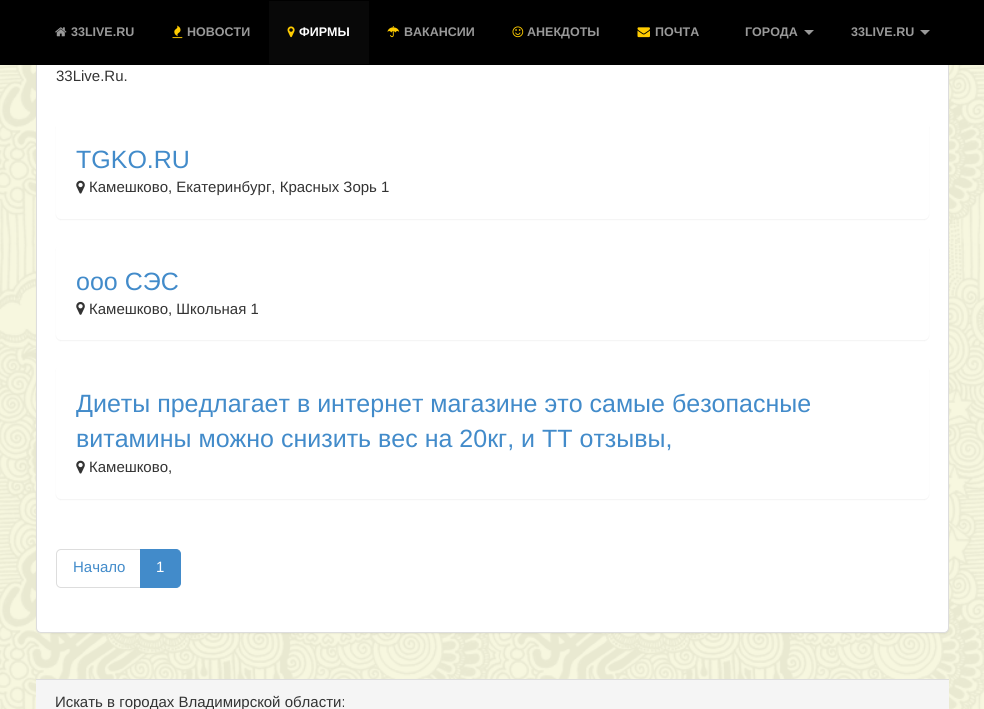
#include <cairo.h>
#include <math.h>
#include <stddef.h>


static void set_color(cairo_t *cr, unsigned color) {
    cairo_set_source_rgb(cr, (color >> 16) / 255.0, (color >> 8 & 255) / 255.0, (color & 255) / 255.0);
}

static void draw_text(cairo_t *cr, double x, double y, const char *s, const char *family, double size, int italic, int bold, unsigned color) {
    cairo_select_font_face(cr, family, italic ? CAIRO_FONT_SLANT_ITALIC : CAIRO_FONT_SLANT_NORMAL,
        bold ? CAIRO_FONT_WEIGHT_BOLD : CAIRO_FONT_WEIGHT_NORMAL);
    cairo_set_font_size(cr, size);
    set_color(cr, color);
    cairo_move_to(cr, x, y);
    cairo_show_text(cr, s);
}

static void fill_rect(cairo_t *cr, double x, double y, double w, double h, unsigned color) {
    set_color(cr, color);
    cairo_rectangle(cr, x, y, w, h);
    cairo_fill(cr);
}

static void rounded_rect(cairo_t *cr, double x, double y, double w, double h, double r) {
    cairo_new_sub_path(cr);
    cairo_arc(cr, x + w - r, y + h - r, r, 0, M_PI / 2);
    cairo_arc(cr, x + r, y + h - r, r, M_PI / 2, M_PI);
    cairo_arc(cr, x + r, y + r, r, M_PI, 1.5 * M_PI);
    cairo_arc(cr, x + w - r, y + r, r, 1.5 * M_PI, 2 * M_PI);
    cairo_close_path(cr);
}

static void draw_shadow(cairo_t *cr, double x, double y, double w, double h, double r, double blur, double alpha) {
    cairo_push_group_with_content(cr, CAIRO_CONTENT_ALPHA);
    cairo_set_operator(cr, CAIRO_OPERATOR_SOURCE);
    for (int i = 15; i >= -15 && fmin(w, h) + blur * i / 3 > 0; i -= 2) {
        double e = blur * i / 6;
        cairo_set_source_rgba(cr, 0, 0, 0, alpha * erfc((i - 1) / 8.5) / 2);
        rounded_rect(cr, x - e, y - e, w + 2 * e, h + 2 * e, fmax(0, fmin(r + e + blur * .6, fmin(w, h) / 2 + e)));
        cairo_fill(cr);
    }
    cairo_pattern_t *soft = cairo_pop_group(cr);
    cairo_mask(cr, soft);
    cairo_pattern_destroy(soft);
}

static void draw_image(cairo_t *cr, const char *path, double x, double y, double w, double h) {
    cairo_surface_t *image = cairo_image_surface_create_from_png(path);
    cairo_save(cr);
    cairo_set_source_surface(cr, image, x, y);
    cairo_rectangle(cr, x, y, w, h);
    cairo_fill(cr);
    cairo_restore(cr);
    cairo_surface_destroy(image);
}

int main(void) {
    cairo_surface_t *surface = cairo_image_surface_create(CAIRO_FORMAT_RGB24, 984, 709);
    cairo_t *cr = cairo_create(surface);
    cairo_font_options_t *options = cairo_font_options_create();
    cairo_font_options_set_hint_metrics(options, CAIRO_HINT_METRICS_OFF);
    cairo_font_options_set_hint_style(options, CAIRO_HINT_STYLE_NONE);
    cairo_set_font_options(cr, options);
    cairo_set_miter_limit(cr, 4);
    set_color(cr, 0xFFFFFF);
    cairo_paint(cr);
    draw_image(cr, "assets/img1.png", 0, 65, 984, 644);
    set_color(cr, 0x000000);
    draw_shadow(cr, 36, -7, 913, 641, 5, 0.5, 0.05);
    set_color(cr, 0xFFFFFF);
    rounded_rect(cr, 36.5, -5.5, 912, 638, 4.5);
    cairo_fill_preserve(cr);
    set_color(cr, 0xDDDDDD);
    cairo_set_line_width(cr, 1);
    cairo_stroke(cr);
    fill_rect(cr, 0, 0, 984, 65, 0x000000);
    draw_image(cr, "assets/img2.png", 55, 27, 12, 10);
    draw_text(cr, 71, 36, "33LIVE.RU", "Liberation Sans", 12.5, 0, 1, 0x999999);
    draw_image(cr, "assets/img3.png", 172, 25, 11, 14);
    draw_text(cr, 187, 36, "НОВОСТИ", "Liberation Sans", 12.5, 0, 1, 0x999999);
    fill_rect(cr, 269, 1, 100, 63, 0x080808);
    draw_image(cr, "assets/img4.png", 287, 26, 8, 12);
    draw_text(cr, 299, 36, "ФИРМЫ", "Liberation Sans", 12.5, 0, 1, 0xFFFFFF);
    draw_image(cr, "assets/img5.png", 387, 26, 13, 12);
    draw_text(cr, 404, 36, "ВАКАНСИИ", "Liberation Sans", 12.5, 0, 1, 0x999999);
    draw_image(cr, "assets/img6.png", 512, 26, 12, 12);
    draw_text(cr, 527, 36, "АНЕКДОТЫ", "Liberation Sans", 12.5, 0, 1, 0x999999);
    draw_image(cr, "assets/img7.png", 637, 27, 13, 11);
    draw_text(cr, 655, 36, "ПОЧТА", "Liberation Sans", 12.5, 0, 1, 0x999999);
    draw_text(cr, 745, 36, "ГОРОДА", "Liberation Sans", 12.5, 0, 1, 0x999999);
    cairo_new_path(cr);
    cairo_move_to(cr, 804, 30);
    cairo_line_to(cr, 814, 30);
    cairo_line_to(cr, 809, 35);
    cairo_close_path(cr);
    cairo_fill(cr);
    draw_text(cr, 851, 36, "33LIVE.RU", "Liberation Sans", 12.5, 0, 1, 0x999999);
    cairo_new_path(cr);
    cairo_move_to(cr, 920, 30);
    cairo_line_to(cr, 930, 30);
    cairo_line_to(cr, 925, 35);
    cairo_close_path(cr);
    cairo_fill(cr);
    draw_text(cr, 56, 81, "33Live.Ru.", "Liberation Sans", 15, 0, 0, 0x333333);
    set_color(cr, 0x000000);
    draw_shadow(cr, 56, 123, 873, 97, 5, 0.5, 0.05);
    set_color(cr, 0xFFFFFF);
    rounded_rect(cr, 56, 121, 873, 98, 5);
    cairo_fill(cr);
    draw_text(cr, 76, 168, "TGKO.RU", "Liberation Sans", 25, 0, 0, 0x428BCA);
    draw_image(cr, "assets/img8.png", 76, 180, 9, 14);
    draw_text(cr, 89, 192, "Камешково, Екатеринбург, Красных Зорь 1", "Liberation Sans", 15, 0, 0, 0x333333);
    set_color(cr, 0x000000);
    draw_shadow(cr, 56, 245, 873, 96, 5, 0.5, 0.05);
    set_color(cr, 0xFFFFFF);
    rounded_rect(cr, 56, 244, 873, 96, 5);
    cairo_fill(cr);
    draw_text(cr, 76, 290, "ооо СЭС", "Liberation Sans", 25, 0, 0, 0x428BCA);
    draw_image(cr, "assets/img9.png", 76, 302, 9, 13);
    draw_text(cr, 89, 314, "Камешково, Школьная 1", "Liberation Sans", 15, 0, 0, 0x333333);
    set_color(cr, 0x000000);
    draw_shadow(cr, 56, 366, 873, 134, 5, 0.5, 0.05);
    set_color(cr, 0xFFFFFF);
    rounded_rect(cr, 56, 365, 873, 134, 5);
    cairo_fill(cr);
    draw_text(cr, 76, 412, "Диеты предлагает в интернет магазине это самые безопасные", "Liberation Sans", 25, 0, 0, 0x428BCA);
    draw_text(cr, 76, 447, "витамины можно снизить вес на 20кг, и ТТ отзывы,", "Liberation Sans", 25, 0, 0, 0x428BCA);
    draw_image(cr, "assets/img8.png", 76, 460, 9, 14);
    draw_text(cr, 89, 472, "Камешково,", "Liberation Sans", 15, 0, 0, 0x333333);
    cairo_new_path(cr);
    cairo_move_to(cr, 61, 549.5);
    cairo_line_to(cr, 140.5, 549.5);
    cairo_line_to(cr, 140.5, 587.5);
    cairo_line_to(cr, 61, 587.5);
    cairo_curve_to(cr, 58.5, 587.5, 56.5, 585.5, 56.5, 583);
    cairo_line_to(cr, 56.5, 554);
    cairo_curve_to(cr, 56.5, 551.5, 58.5, 549.5, 61, 549.5);
    cairo_close_path(cr);
    set_color(cr, 0xDDDDDD);
    cairo_stroke(cr);
    draw_text(cr, 73, 572, "Начало", "Liberation Sans", 15, 0, 0, 0x428BCA);
    cairo_new_path(cr);
    cairo_move_to(cr, 140.5, 549.5);
    cairo_line_to(cr, 176, 549.5);
    cairo_curve_to(cr, 178.5, 549.5, 180.5, 551.5, 180.5, 554);
    cairo_line_to(cr, 180.5, 583);
    cairo_curve_to(cr, 180.5, 585.5, 178.5, 587.5, 176, 587.5);
    cairo_line_to(cr, 140.5, 587.5);
    cairo_close_path(cr);
    cairo_fill_preserve(cr);
    cairo_stroke(cr);
    draw_text(cr, 156, 572, "1", "Liberation Sans", 15, 0, 0, 0xFFFFFF);
    fill_rect(cr, 36, 680, 913, 29, 0xF5F5F5);
    fill_rect(cr, 36, 679, 913, 1, 0xDDDDDD);
    draw_text(cr, 55, 707, "Искать в городах Владимирской области:", "Liberation Sans", 15, 0, 0, 0x333333);
    cairo_surface_write_to_png(surface, "output.png");
    cairo_font_options_destroy(options);
    cairo_destroy(cr);
    cairo_surface_destroy(surface);
    return 0;
}
